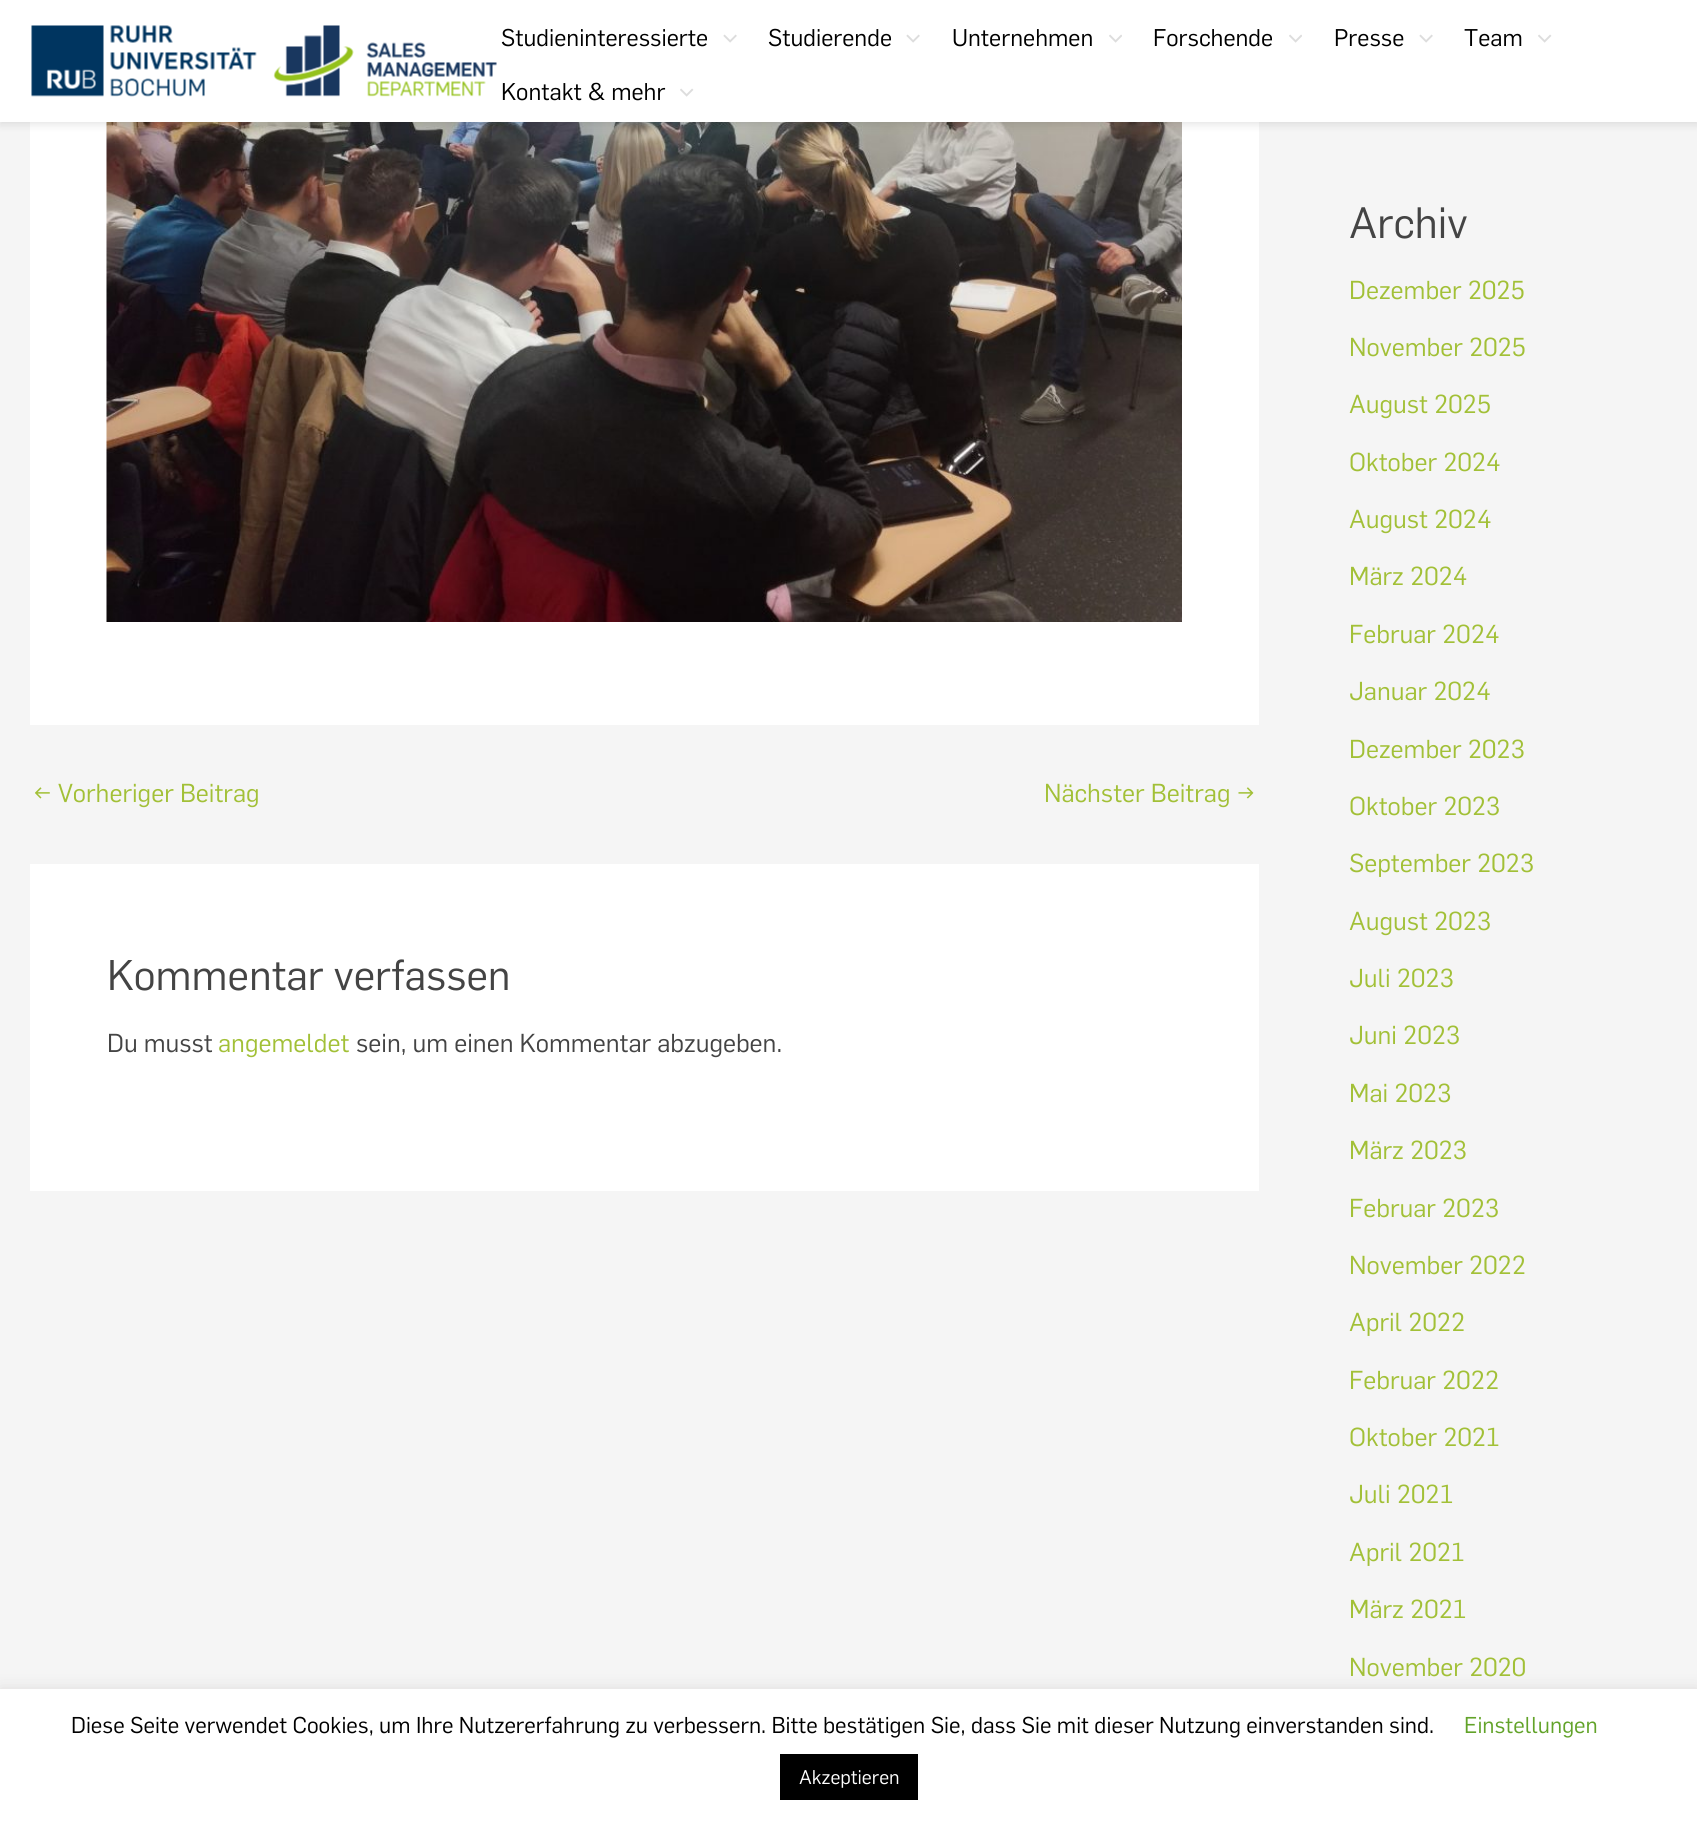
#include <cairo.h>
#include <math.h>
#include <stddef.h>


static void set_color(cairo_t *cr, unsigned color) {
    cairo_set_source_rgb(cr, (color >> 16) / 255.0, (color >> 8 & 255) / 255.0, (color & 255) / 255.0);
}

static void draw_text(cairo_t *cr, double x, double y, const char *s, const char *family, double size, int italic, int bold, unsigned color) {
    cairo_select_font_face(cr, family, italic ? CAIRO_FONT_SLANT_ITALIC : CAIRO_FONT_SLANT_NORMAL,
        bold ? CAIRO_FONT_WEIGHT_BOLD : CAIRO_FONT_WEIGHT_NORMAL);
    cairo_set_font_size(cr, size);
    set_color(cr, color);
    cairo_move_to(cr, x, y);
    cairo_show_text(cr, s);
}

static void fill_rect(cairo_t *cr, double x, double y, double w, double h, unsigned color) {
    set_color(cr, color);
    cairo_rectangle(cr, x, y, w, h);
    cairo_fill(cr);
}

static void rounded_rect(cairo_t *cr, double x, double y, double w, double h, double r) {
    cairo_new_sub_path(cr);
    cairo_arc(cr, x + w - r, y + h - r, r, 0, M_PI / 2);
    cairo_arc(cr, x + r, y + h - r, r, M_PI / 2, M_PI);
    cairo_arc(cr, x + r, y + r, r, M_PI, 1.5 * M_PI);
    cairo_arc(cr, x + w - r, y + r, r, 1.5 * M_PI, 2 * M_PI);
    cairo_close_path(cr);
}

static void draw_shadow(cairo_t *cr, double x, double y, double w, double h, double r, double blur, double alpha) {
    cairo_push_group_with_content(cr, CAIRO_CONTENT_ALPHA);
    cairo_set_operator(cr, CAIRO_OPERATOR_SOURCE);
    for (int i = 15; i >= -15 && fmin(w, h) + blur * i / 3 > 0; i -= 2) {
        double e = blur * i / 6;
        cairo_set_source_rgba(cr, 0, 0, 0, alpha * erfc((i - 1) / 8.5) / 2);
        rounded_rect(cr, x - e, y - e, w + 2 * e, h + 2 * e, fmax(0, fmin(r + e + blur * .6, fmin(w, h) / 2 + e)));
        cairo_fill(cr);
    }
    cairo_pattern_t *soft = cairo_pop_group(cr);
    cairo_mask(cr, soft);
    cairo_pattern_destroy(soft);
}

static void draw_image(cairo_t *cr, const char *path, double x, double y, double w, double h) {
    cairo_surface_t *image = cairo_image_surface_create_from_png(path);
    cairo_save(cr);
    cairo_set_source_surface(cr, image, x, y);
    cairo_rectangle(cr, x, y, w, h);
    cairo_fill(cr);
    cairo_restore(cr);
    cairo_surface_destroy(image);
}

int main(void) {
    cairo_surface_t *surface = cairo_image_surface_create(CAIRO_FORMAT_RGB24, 1697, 1825);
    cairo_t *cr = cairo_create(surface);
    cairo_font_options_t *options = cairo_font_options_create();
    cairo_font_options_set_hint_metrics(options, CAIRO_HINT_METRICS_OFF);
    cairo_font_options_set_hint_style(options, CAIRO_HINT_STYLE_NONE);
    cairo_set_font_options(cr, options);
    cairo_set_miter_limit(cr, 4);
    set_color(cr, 0xF5F5F5);
    cairo_paint(cr);
    fill_rect(cr, 30, 122, 1229, 603, 0xFFFFFF);
    draw_image(cr, "assets/img5.png", 106, 122, 1076, 500);
    set_color(cr, 0x000000);
    draw_shadow(cr, 0, 3, 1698, 122, 0, 4, 0.1);
    fill_rect(cr, 0, 0, 1697, 122, 0xFFFFFF);
    draw_image(cr, "assets/img1.png", 31, 25, 466, 72);
    draw_text(cr, 501, 46, "Studieninteressierte", "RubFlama", 23.75, 0, 0, 0x000000);
    draw_image(cr, "assets/img2.png", 723, 34, 14, 9);
    draw_text(cr, 768, 46, "Studierende", "RubFlama", 23.75, 0, 0, 0x000000);
    draw_image(cr, "assets/img2.png", 906, 34, 14, 9);
    draw_text(cr, 952, 46, "Unternehmen", "RubFlama", 23.75, 0, 0, 0x000000);
    draw_image(cr, "assets/img3.png", 1109, 34, 13, 9);
    draw_text(cr, 1153, 46, "Forschende", "RubFlama", 23.75, 0, 0, 0x000000);
    draw_image(cr, "assets/img3.png", 1289, 34, 13, 9);
    draw_text(cr, 1334, 46, "Presse", "RubFlama", 23.75, 0, 0, 0x000000);
    draw_image(cr, "assets/img2.png", 1419, 34, 14, 9);
    draw_text(cr, 1464, 46, "Team", "RubFlama", 23.75, 0, 0, 0x000000);
    draw_image(cr, "assets/img4.png", 1538, 34, 14, 9);
    draw_text(cr, 501, 100, "Kontakt & mehr", "RubFlama", 23.75, 0, 0, 0x000000);
    draw_image(cr, "assets/img4.png", 680, 88, 14, 9);
    draw_text(cr, 33, 802, "← Vorheriger Beitrag", "RubFlama", 25.5, 0, 0, 0xA2C037);
    draw_text(cr, 1044, 802, "Nächster Beitrag →", "RubFlama", 25.5, 0, 0, 0xA2C037);
    fill_rect(cr, 30, 864, 1229, 327, 0xFFFFFF);
    draw_text(cr, 107, 990, "Kommentar verfassen", "RubFlama", 42, 0, 0, 0x444444);
    draw_text(cr, 107, 1052, "Du musst", "RubFlama", 25.5, 0, 0, 0x444444);
    draw_text(cr, 218, 1052, "angemeldet", "RubFlama", 25.5, 0, 0, 0xA2C037);
    draw_text(cr, 356, 1052, "sein, um einen Kommentar abzugeben.", "RubFlama", 25.5, 0, 0, 0x444444);
    draw_text(cr, 1349, 238, "Archiv", "RubFlama", 43, 0, 0, 0x444444);
    draw_text(cr, 1349, 299, "Dezember 2025", "RubFlama", 25.5, 0, 0, 0xA2C037);
    draw_text(cr, 1349, 356, "November 2025", "RubFlama", 25.5, 0, 0, 0xA2C037);
    draw_text(cr, 1349, 413, "August 2025", "RubFlama", 25.5, 0, 0, 0xA2C037);
    draw_text(cr, 1349, 471, "Oktober 2024", "RubFlama", 25.5, 0, 0, 0xA2C037);
    draw_text(cr, 1349, 528, "August 2024", "RubFlama", 25.5, 0, 0, 0xA2C037);
    draw_text(cr, 1349, 585, "März 2024", "RubFlama", 25.5, 0, 0, 0xA2C037);
    draw_text(cr, 1349, 643, "Februar 2024", "RubFlama", 25.5, 0, 0, 0xA2C037);
    draw_text(cr, 1349, 700, "Januar 2024", "RubFlama", 25.5, 0, 0, 0xA2C037);
    draw_text(cr, 1349, 758, "Dezember 2023", "RubFlama", 25.5, 0, 0, 0xA2C037);
    draw_text(cr, 1349, 815, "Oktober 2023", "RubFlama", 25.5, 0, 0, 0xA2C037);
    draw_text(cr, 1349, 872, "September 2023", "RubFlama", 25.5, 0, 0, 0xA2C037);
    draw_text(cr, 1349, 930, "August 2023", "RubFlama", 25.5, 0, 0, 0xA2C037);
    draw_text(cr, 1349, 987, "Juli 2023", "RubFlama", 25.5, 0, 0, 0xA2C037);
    draw_text(cr, 1349, 1044, "Juni 2023", "RubFlama", 25.5, 0, 0, 0xA2C037);
    draw_text(cr, 1349, 1102, "Mai 2023", "RubFlama", 25.5, 0, 0, 0xA2C037);
    draw_text(cr, 1349, 1159, "März 2023", "RubFlama", 25.5, 0, 0, 0xA2C037);
    draw_text(cr, 1349, 1217, "Februar 2023", "RubFlama", 25.5, 0, 0, 0xA2C037);
    draw_text(cr, 1349, 1274, "November 2022", "RubFlama", 25.5, 0, 0, 0xA2C037);
    draw_text(cr, 1349, 1331, "April 2022", "RubFlama", 25.5, 0, 0, 0xA2C037);
    draw_text(cr, 1349, 1389, "Februar 2022", "RubFlama", 25.5, 0, 0, 0xA2C037);
    draw_text(cr, 1349, 1446, "Oktober 2021", "RubFlama", 25.5, 0, 0, 0xA2C037);
    draw_text(cr, 1349, 1503, "Juli 2021", "RubFlama", 25.5, 0, 0, 0xA2C037);
    draw_text(cr, 1349, 1561, "April 2021", "RubFlama", 25.5, 0, 0, 0xA2C037);
    draw_text(cr, 1349, 1618, "März 2021", "RubFlama", 25.5, 0, 0, 0xA2C037);
    draw_text(cr, 1349, 1676, "November 2020", "RubFlama", 25.5, 0, 0, 0xA2C037);
    set_color(cr, 0xACABAB);
    draw_shadow(cr, 0, 1688, 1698, 136, 0, 7.5, 0.3);
    fill_rect(cr, 0, 1689, 1697, 136, 0xFFFFFF);
    draw_text(cr, 71, 1733, "Diese Seite verwendet Cookies, um Ihre Nutzererfahrung zu verbessern. Bitte bestätigen Sie, dass Sie mit dieser Nutzung einverstanden sind.", "RubFlama", 22.5, 0, 0, 0x000000);
    draw_text(cr, 1464, 1733, "Einstellungen", "RubFlama", 22.5, 0, 0, 0x62A329);
    fill_rect(cr, 780, 1754, 138, 46, 0x000000);
    draw_text(cr, 799, 1784, "Akzeptieren", "RubFlama", 19.5, 0, 0, 0xFFFFFF);
    cairo_surface_write_to_png(surface, "output.png");
    cairo_font_options_destroy(options);
    cairo_destroy(cr);
    cairo_surface_destroy(surface);
    return 0;
}
